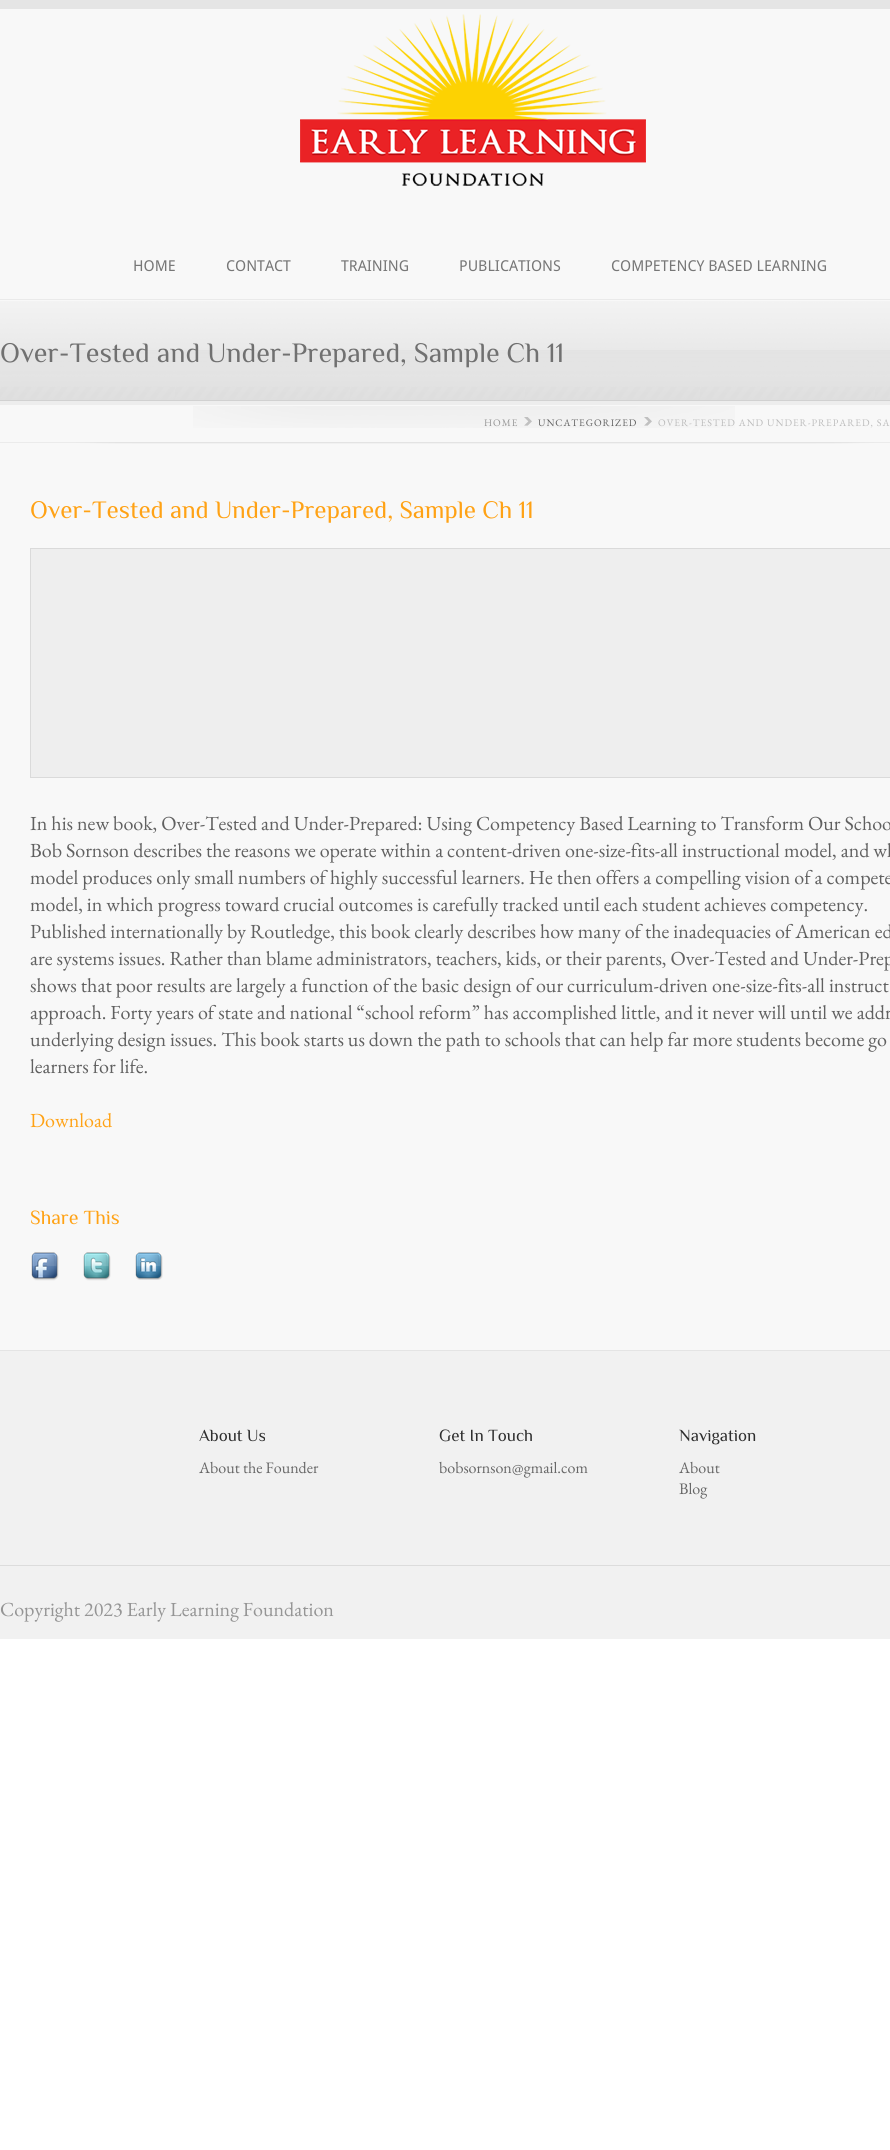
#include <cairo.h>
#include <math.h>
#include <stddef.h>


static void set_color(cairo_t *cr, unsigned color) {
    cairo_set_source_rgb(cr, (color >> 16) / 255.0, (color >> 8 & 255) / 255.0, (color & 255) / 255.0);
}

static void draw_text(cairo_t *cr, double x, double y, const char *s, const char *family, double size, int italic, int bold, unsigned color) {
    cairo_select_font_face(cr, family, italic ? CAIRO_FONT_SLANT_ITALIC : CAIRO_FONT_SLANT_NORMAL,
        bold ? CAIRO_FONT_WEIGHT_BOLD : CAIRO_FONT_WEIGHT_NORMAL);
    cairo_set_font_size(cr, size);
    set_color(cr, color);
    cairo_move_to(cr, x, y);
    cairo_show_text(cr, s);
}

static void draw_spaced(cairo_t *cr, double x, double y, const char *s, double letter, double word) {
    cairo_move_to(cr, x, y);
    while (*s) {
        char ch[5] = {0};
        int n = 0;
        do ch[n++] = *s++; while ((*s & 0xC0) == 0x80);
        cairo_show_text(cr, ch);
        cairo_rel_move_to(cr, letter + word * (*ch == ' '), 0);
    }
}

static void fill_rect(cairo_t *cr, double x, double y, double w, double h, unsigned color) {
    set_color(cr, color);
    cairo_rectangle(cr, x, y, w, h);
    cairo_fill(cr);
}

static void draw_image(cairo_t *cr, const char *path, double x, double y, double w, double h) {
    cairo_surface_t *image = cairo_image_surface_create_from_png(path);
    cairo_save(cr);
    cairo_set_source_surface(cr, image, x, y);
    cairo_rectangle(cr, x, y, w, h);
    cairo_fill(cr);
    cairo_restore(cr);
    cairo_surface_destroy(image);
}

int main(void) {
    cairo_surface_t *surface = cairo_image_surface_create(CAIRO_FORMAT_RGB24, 890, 2150);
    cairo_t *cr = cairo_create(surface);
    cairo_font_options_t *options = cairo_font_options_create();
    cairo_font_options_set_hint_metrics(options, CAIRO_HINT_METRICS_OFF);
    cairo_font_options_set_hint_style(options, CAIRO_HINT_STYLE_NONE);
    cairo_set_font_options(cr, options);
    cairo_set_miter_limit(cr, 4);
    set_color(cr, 0xFFFFFF);
    cairo_paint(cr);
    fill_rect(cr, 0, 9, 890, 1341, 0xF8F8F8);
    fill_rect(cr, 0, 0, 890, 9, 0xE5E5E5);
    draw_image(cr, "assets/img1.png", 300, 14, 346, 172);
    draw_text(cr, 133, 271, "HOME", "Droid Sans", 15, 0, 0, 0x777777);
    draw_text(cr, 226, 271, "CONTACT", "Droid Sans", 15, 0, 0, 0x777777);
    draw_text(cr, 341, 271, "TRAINING", "Droid Sans", 15, 0, 0, 0x777777);
    draw_text(cr, 459, 271, "PUBLICATIONS", "Droid Sans", 15, 0, 0, 0x777777);
    draw_text(cr, 611, 271, "COMPETENCY BASED LEARNING", "Droid Sans", 15, 0, 0, 0x777777);
    draw_image(cr, "assets/img2.png", 0, 299, 890, 102);
    fill_rect(cr, 0, 401, 890, 4, 0xEDEDED);
    draw_text(cr, 0, 362, "Over-Tested and Under-Prepared, Sample Ch 11", "Philosopher", 28, 0, 0, 0x707070);
    draw_image(cr, "assets/img3.png", 0, 442, 890, 2);
    draw_image(cr, "assets/img4.png", 193, 406, 542, 22);
    cairo_select_font_face(cr, "EB Garamond", CAIRO_FONT_SLANT_NORMAL, CAIRO_FONT_WEIGHT_NORMAL);
    cairo_set_font_size(cr, 10);
    set_color(cr, 0x959595);
    draw_spaced(cr, 484, 426, "HOME", 1, 0);
    draw_image(cr, "assets/img5.png", 524, 417, 8, 9);
    set_color(cr, 0x606060);
    draw_spaced(cr, 538, 426, "UNCATEGORIZED", 1, 0);
    draw_image(cr, "assets/img6.png", 644, 417, 8, 9);
    set_color(cr, 0xBBBBBB);
    draw_spaced(cr, 658, 426, "OVER-TESTED AND UNDER-PREPARED, SA", 1, 0);
    draw_text(cr, 30, 518, "Over-Tested and Under-Prepared, Sample Ch 11", "Philosopher", 25, 0, 0, 0xFFA215);
    set_color(cr, 0xEEEEEE);
    cairo_rectangle(cr, 30.5, 548.5, 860, 229);
    cairo_fill_preserve(cr);
    set_color(cr, 0xDADADA);
    cairo_set_line_width(cr, 1);
    cairo_stroke(cr);
    draw_text(cr, 30, 830, "In his new book, Over-Tested and Under-Prepared: Using Competency Based Learning to Transform Our Schoo", "EB Garamond", 20, 0, 0, 0x606060);
    draw_text(cr, 30, 857, "Bob Sornson describes the reasons we operate within a content-driven one-size-fits-all instructional model, and wh", "EB Garamond", 20, 0, 0, 0x606060);
    draw_text(cr, 30, 884, "model produces only small numbers of highly successful learners. He then offers a compelling vision of a compete", "EB Garamond", 20, 0, 0, 0x606060);
    draw_text(cr, 30, 911, "model, in which progress toward crucial outcomes is carefully tracked until each student achieves competency.", "EB Garamond", 20, 0, 0, 0x606060);
    draw_text(cr, 30, 938, "Published internationally by Routledge, this book clearly describes how many of the inadequacies of American ed", "EB Garamond", 20, 0, 0, 0x606060);
    draw_text(cr, 30, 965, "are systems issues. Rather than blame administrators, teachers, kids, or their parents, Over-Tested and Under-Prep", "EB Garamond", 20, 0, 0, 0x606060);
    draw_text(cr, 30, 992, "shows that poor results are largely a function of the basic design of our curriculum-driven one-size-fits-all instruct", "EB Garamond", 20, 0, 0, 0x606060);
    draw_text(cr, 30, 1019, "approach. Forty years of state and national “school reform” has accomplished little, and it never will until we addr", "EB Garamond", 20, 0, 0, 0x606060);
    draw_text(cr, 30, 1046, "underlying design issues. This book starts us down the path to schools that can help far more students become go", "EB Garamond", 20, 0, 0, 0x606060);
    draw_text(cr, 30, 1073, "learners for life.", "EB Garamond", 20, 0, 0, 0x606060);
    draw_text(cr, 30, 1127, "Download", "EB Garamond", 20, 0, 0, 0xFFA215);
    draw_text(cr, 30, 1224, "Share This", "Philosopher", 20, 0, 0, 0xFFA215);
    draw_image(cr, "assets/img7.png", 31, 1252, 28, 29);
    draw_image(cr, "assets/img8.png", 83, 1252, 28, 29);
    draw_image(cr, "assets/img9.png", 135, 1252, 28, 28);
    fill_rect(cr, 0, 1351, 890, 288, 0xF1F1F1);
    fill_rect(cr, 0, 1350, 890, 1, 0xE4E4E4);
    draw_text(cr, 199, 1441, "About Us", "Philosopher", 17, 0, 0, 0x2E2E2E);
    draw_text(cr, 199, 1473, "About the Founder", "EB Garamond", 16, 0, 0, 0x666666);
    draw_text(cr, 439, 1441, "Get In Touch", "Philosopher", 17, 0, 0, 0x2E2E2E);
    draw_text(cr, 439, 1473, "bobsornson@gmail.com", "EB Garamond", 16, 0, 0, 0x666666);
    draw_text(cr, 679, 1441, "Navigation", "Philosopher", 17, 0, 0, 0x2E2E2E);
    draw_text(cr, 679, 1473, "About", "EB Garamond", 16, 0, 0, 0x666666);
    draw_text(cr, 679, 1494, "Blog", "EB Garamond", 16, 0, 0, 0x666666);
    fill_rect(cr, 0, 1565, 890, 1, 0xDCDCDC);
    draw_text(cr, 0, 1616, "Copyright 2023 Early Learning Foundation", "EB Garamond", 20, 0, 0, 0x959595);
    cairo_surface_write_to_png(surface, "output.png");
    cairo_font_options_destroy(options);
    cairo_destroy(cr);
    cairo_surface_destroy(surface);
    return 0;
}
